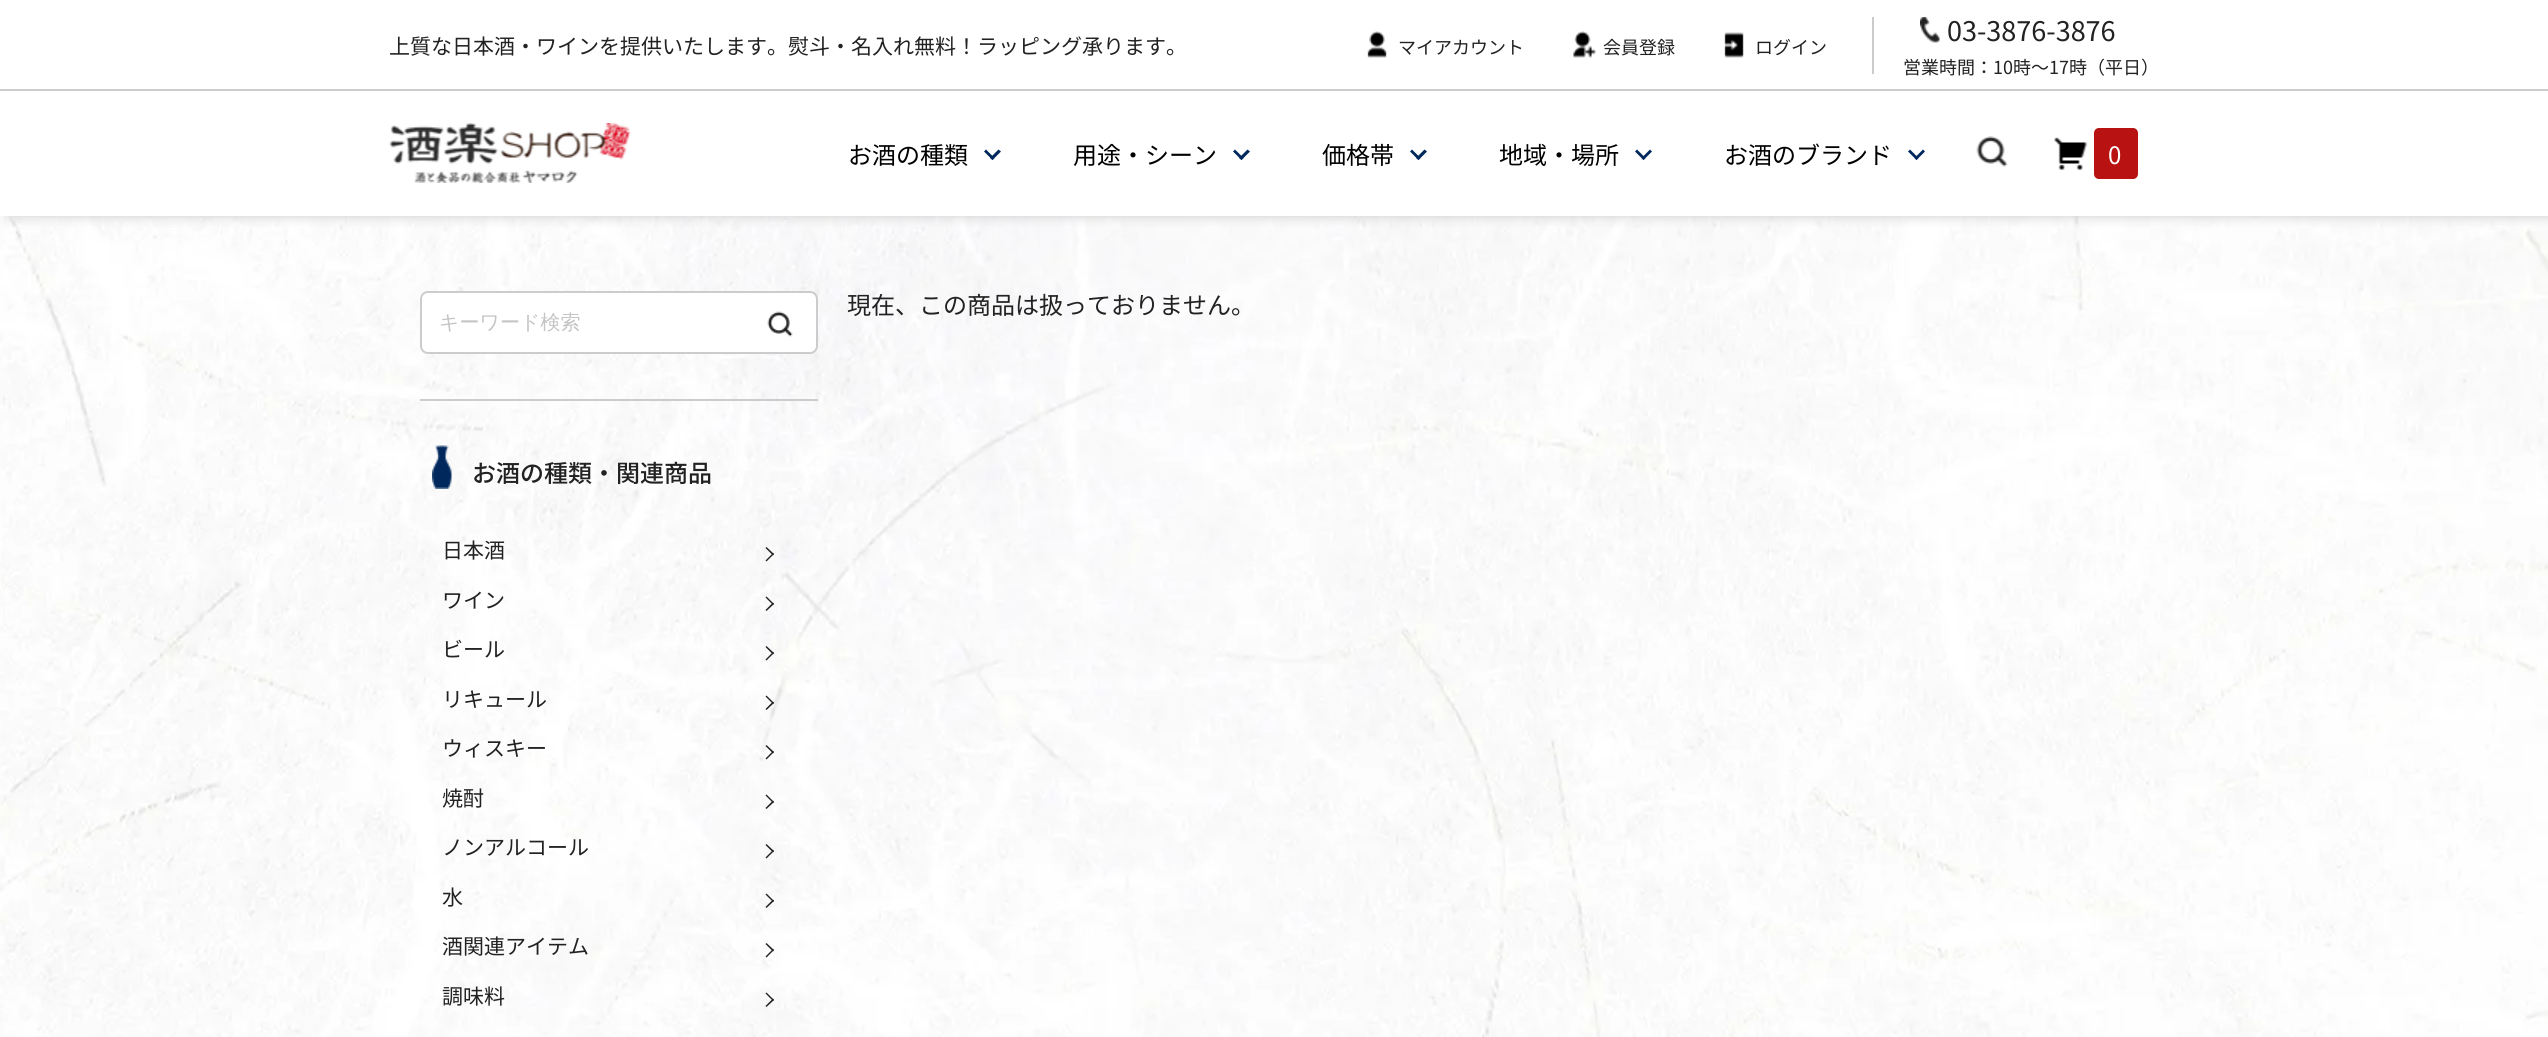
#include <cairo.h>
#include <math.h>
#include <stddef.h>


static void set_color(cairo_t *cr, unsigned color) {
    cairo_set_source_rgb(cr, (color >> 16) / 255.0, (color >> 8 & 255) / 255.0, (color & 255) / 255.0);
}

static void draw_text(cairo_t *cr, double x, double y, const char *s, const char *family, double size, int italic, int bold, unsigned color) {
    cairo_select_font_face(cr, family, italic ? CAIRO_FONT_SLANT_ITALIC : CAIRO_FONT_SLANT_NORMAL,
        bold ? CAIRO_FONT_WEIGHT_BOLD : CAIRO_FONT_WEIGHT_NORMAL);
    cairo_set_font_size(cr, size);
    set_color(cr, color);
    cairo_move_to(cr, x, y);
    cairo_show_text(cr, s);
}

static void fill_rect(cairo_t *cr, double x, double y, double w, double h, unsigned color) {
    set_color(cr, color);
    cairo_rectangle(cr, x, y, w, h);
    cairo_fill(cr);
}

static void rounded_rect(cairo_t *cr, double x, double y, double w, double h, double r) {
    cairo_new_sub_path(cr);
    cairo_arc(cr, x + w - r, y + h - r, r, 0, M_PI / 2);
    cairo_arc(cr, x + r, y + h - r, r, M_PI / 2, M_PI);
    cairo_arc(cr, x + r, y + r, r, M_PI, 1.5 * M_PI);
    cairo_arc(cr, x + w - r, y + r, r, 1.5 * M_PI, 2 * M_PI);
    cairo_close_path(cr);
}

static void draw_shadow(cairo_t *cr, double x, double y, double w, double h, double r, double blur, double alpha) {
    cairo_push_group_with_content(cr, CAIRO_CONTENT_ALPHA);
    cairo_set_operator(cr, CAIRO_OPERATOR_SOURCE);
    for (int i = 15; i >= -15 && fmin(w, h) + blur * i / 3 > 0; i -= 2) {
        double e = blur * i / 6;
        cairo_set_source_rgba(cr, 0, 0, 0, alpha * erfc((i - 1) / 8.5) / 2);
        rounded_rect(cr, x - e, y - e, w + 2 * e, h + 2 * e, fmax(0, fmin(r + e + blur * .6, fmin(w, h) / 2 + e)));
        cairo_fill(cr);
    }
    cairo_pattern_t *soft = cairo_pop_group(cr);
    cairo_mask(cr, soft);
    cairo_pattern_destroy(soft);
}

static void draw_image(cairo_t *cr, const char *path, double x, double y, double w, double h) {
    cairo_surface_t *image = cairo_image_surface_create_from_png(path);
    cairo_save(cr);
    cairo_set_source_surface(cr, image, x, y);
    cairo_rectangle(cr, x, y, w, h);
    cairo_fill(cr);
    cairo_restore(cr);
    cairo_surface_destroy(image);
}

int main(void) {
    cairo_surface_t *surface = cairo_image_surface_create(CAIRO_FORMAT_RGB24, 2548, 1037);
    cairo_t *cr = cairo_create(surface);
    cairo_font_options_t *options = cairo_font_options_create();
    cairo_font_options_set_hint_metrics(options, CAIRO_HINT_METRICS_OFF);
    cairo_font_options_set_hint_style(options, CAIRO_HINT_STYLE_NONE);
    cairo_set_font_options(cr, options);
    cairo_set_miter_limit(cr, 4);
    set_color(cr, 0xFFFFFF);
    cairo_paint(cr);
    draw_image(cr, "assets/img8.png", 0, 216, 2548, 821);
    cairo_save(cr);
    cairo_rectangle(cr, 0, 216, 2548, 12);
    cairo_clip(cr);
    set_color(cr, 0xCCCCCC);
    draw_shadow(cr, 9, 9, 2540, 207, 0, 6, 1);
    cairo_restore(cr);
    draw_text(cr, 389, 54, "上質な日本酒・ワインを提供いたします。熨斗・名入れ無料！ラッピング承ります。", "Noto Sans JP", 21, 0, 0, 0x222222);
    fill_rect(cr, 1872, 17, 2, 57, 0xCCCCCC);
    draw_image(cr, "assets/img1.png", 1367, 31, 20, 27);
    draw_text(cr, 1398, 54, "マイアカウント", "Noto Sans JP", 18, 0, 0, 0x222222);
    draw_image(cr, "assets/img2.png", 1573, 31, 23, 27);
    draw_text(cr, 1603, 54, "会員登録", "Noto Sans JP", 18, 0, 0, 0x222222);
    draw_image(cr, "assets/img3.png", 1724, 32, 20, 26);
    draw_text(cr, 1755, 54, "ログイン", "Noto Sans JP", 18, 0, 0, 0x222222);
    draw_image(cr, "assets/img4.png", 1920, 17, 20, 26);
    draw_text(cr, 1947, 41, "03-3876-3876", "Noto Sans JP", 27, 0, 0, 0x222222);
    draw_text(cr, 1903, 74, "営業時間：10時～17時（平日）", "Noto Sans JP", 18, 0, 0, 0x222222);
    fill_rect(cr, 0, 89, 2548, 2, 0xCCCCCC);
    draw_image(cr, "assets/img5.png", 389, 123, 242, 60);
    draw_text(cr, 848, 164, "お酒の種類", "Noto Sans JP", 24, 0, 0, 0x000000);
    set_color(cr, 0x00285C);
    cairo_new_path(cr);
    cairo_move_to(cr, 998.5, 149.5);
    cairo_line_to(cr, 1001, 151.5);
    cairo_line_to(cr, 992.5, 160);
    cairo_line_to(cr, 990, 158);
    cairo_close_path(cr);
    cairo_fill(cr);
    cairo_new_path(cr);
    cairo_move_to(cr, 986, 149.5);
    cairo_line_to(cr, 994.5, 158);
    cairo_line_to(cr, 992.5, 160);
    cairo_line_to(cr, 984, 151.5);
    cairo_close_path(cr);
    cairo_fill(cr);
    draw_text(cr, 1073, 164, "用途・シーン", "Noto Sans JP", 24, 0, 0, 0x000000);
    set_color(cr, 0x00285C);
    cairo_new_path(cr);
    cairo_move_to(cr, 1247.5, 149.5);
    cairo_line_to(cr, 1250, 151.5);
    cairo_line_to(cr, 1241.5, 160);
    cairo_line_to(cr, 1239, 158);
    cairo_close_path(cr);
    cairo_fill(cr);
    cairo_new_path(cr);
    cairo_move_to(cr, 1235, 149.5);
    cairo_line_to(cr, 1243.5, 158);
    cairo_line_to(cr, 1241.5, 160);
    cairo_line_to(cr, 1233, 151.5);
    cairo_close_path(cr);
    cairo_fill(cr);
    draw_text(cr, 1322, 164, "価格帯", "Noto Sans JP", 24, 0, 0, 0x000000);
    set_color(cr, 0x00285C);
    cairo_new_path(cr);
    cairo_move_to(cr, 1424.5, 149.5);
    cairo_line_to(cr, 1427, 151.5);
    cairo_line_to(cr, 1418.5, 160);
    cairo_line_to(cr, 1416, 158);
    cairo_close_path(cr);
    cairo_fill(cr);
    cairo_new_path(cr);
    cairo_move_to(cr, 1412, 149.5);
    cairo_line_to(cr, 1420.5, 158);
    cairo_line_to(cr, 1418.5, 160);
    cairo_line_to(cr, 1410, 151.5);
    cairo_close_path(cr);
    cairo_fill(cr);
    draw_text(cr, 1499, 164, "地域・場所", "Noto Sans JP", 24, 0, 0, 0x000000);
    set_color(cr, 0x00285C);
    cairo_new_path(cr);
    cairo_move_to(cr, 1650, 149.5);
    cairo_line_to(cr, 1652, 151.5);
    cairo_line_to(cr, 1643.5, 160);
    cairo_line_to(cr, 1641.5, 158);
    cairo_close_path(cr);
    cairo_fill(cr);
    cairo_new_path(cr);
    cairo_move_to(cr, 1637, 149.5);
    cairo_line_to(cr, 1645.5, 158);
    cairo_line_to(cr, 1643.5, 160);
    cairo_line_to(cr, 1635, 151.5);
    cairo_close_path(cr);
    cairo_fill(cr);
    draw_text(cr, 1724, 164, "お酒のブランド", "Noto Sans JP", 24, 0, 0, 0x000000);
    set_color(cr, 0x00285C);
    cairo_new_path(cr);
    cairo_move_to(cr, 1923, 149.5);
    cairo_line_to(cr, 1925, 151.5);
    cairo_line_to(cr, 1916.5, 160);
    cairo_line_to(cr, 1914.5, 158);
    cairo_close_path(cr);
    cairo_fill(cr);
    cairo_new_path(cr);
    cairo_move_to(cr, 1910, 149.5);
    cairo_line_to(cr, 1918.5, 158);
    cairo_line_to(cr, 1916.5, 160);
    cairo_line_to(cr, 1908, 151.5);
    cairo_close_path(cr);
    cairo_fill(cr);
    draw_image(cr, "assets/img6.png", 1976, 136, 32, 31);
    draw_image(cr, "assets/img7.png", 2053, 137, 35, 33);
    set_color(cr, 0xB81212);
    rounded_rect(cr, 2094, 128, 44, 51, 5);
    cairo_fill(cr);
    draw_text(cr, 2108, 164, "0", "Noto Sans JP", 24, 0, 0, 0xFFFFFF);
    draw_text(cr, 847, 314, "現在、この商品は扱っておりません。", "Noto Sans JP", 24, 0, 0, 0x222222);
    fill_rect(cr, 420, 399, 398, 2, 0xCCCCCC);
    set_color(cr, 0xFFFFFF);
    rounded_rect(cr, 421, 292, 396, 61, 7);
    cairo_fill_preserve(cr);
    set_color(cr, 0xCCCCCC);
    cairo_stroke(cr);
    draw_text(cr, 439, 329, "キーワード検索", "WenQuanYi Zen Hei Medium", 20, 0, 0, 0xC4C4C4);
    draw_image(cr, "assets/img9.png", 767, 311, 26, 26);
    draw_image(cr, "assets/img10.png", 432, 445, 20, 44);
    draw_text(cr, 472, 482, "お酒の種類・関連商品", "Noto Sans JP Medium", 24, 0, 0, 0x222222);
    draw_text(cr, 442, 558, "日本酒", "Noto Sans JP", 21, 0, 0, 0x222222);
    cairo_new_path(cr);
    cairo_move_to(cr, 766.5, 547);
    cairo_line_to(cr, 774, 554);
    cairo_line_to(cr, 773, 555.5);
    cairo_line_to(cr, 765.5, 548);
    cairo_close_path(cr);
    cairo_fill(cr);
    cairo_new_path(cr);
    cairo_move_to(cr, 773, 553);
    cairo_line_to(cr, 774, 554);
    cairo_line_to(cr, 766.5, 561.5);
    cairo_line_to(cr, 765.5, 560.5);
    cairo_close_path(cr);
    cairo_fill(cr);
    draw_text(cr, 442, 608, "ワイン", "Noto Sans JP", 21, 0, 0, 0x222222);
    cairo_new_path(cr);
    cairo_move_to(cr, 766.5, 596.5);
    cairo_line_to(cr, 774, 604);
    cairo_line_to(cr, 773, 605);
    cairo_line_to(cr, 765.5, 597.5);
    cairo_close_path(cr);
    cairo_fill(cr);
    cairo_new_path(cr);
    cairo_move_to(cr, 773, 602.5);
    cairo_line_to(cr, 774, 604);
    cairo_line_to(cr, 766.5, 611);
    cairo_line_to(cr, 765.5, 610);
    cairo_close_path(cr);
    cairo_fill(cr);
    draw_text(cr, 442, 657, "ビール", "Noto Sans JP", 21, 0, 0, 0x222222);
    cairo_new_path(cr);
    cairo_move_to(cr, 766.5, 646);
    cairo_line_to(cr, 774, 653);
    cairo_line_to(cr, 773, 654.5);
    cairo_line_to(cr, 765.5, 647);
    cairo_close_path(cr);
    cairo_fill(cr);
    cairo_new_path(cr);
    cairo_move_to(cr, 773, 652);
    cairo_line_to(cr, 774, 653);
    cairo_line_to(cr, 766.5, 660.5);
    cairo_line_to(cr, 765.5, 659.5);
    cairo_close_path(cr);
    cairo_fill(cr);
    draw_text(cr, 442, 707, "リキュール", "Noto Sans JP", 21, 0, 0, 0x222222);
    cairo_new_path(cr);
    cairo_move_to(cr, 766.5, 695.5);
    cairo_line_to(cr, 774, 703);
    cairo_line_to(cr, 773, 704);
    cairo_line_to(cr, 765.5, 696.5);
    cairo_close_path(cr);
    cairo_fill(cr);
    cairo_new_path(cr);
    cairo_move_to(cr, 773, 701.5);
    cairo_line_to(cr, 774, 703);
    cairo_line_to(cr, 766.5, 710);
    cairo_line_to(cr, 765.5, 709);
    cairo_close_path(cr);
    cairo_fill(cr);
    draw_text(cr, 442, 756, "ウィスキー", "Noto Sans JP", 21, 0, 0, 0x222222);
    cairo_new_path(cr);
    cairo_move_to(cr, 766.5, 745);
    cairo_line_to(cr, 774, 752);
    cairo_line_to(cr, 773, 753.5);
    cairo_line_to(cr, 765.5, 746);
    cairo_close_path(cr);
    cairo_fill(cr);
    cairo_new_path(cr);
    cairo_move_to(cr, 773, 751);
    cairo_line_to(cr, 774, 752);
    cairo_line_to(cr, 766.5, 759.5);
    cairo_line_to(cr, 765.5, 758.5);
    cairo_close_path(cr);
    cairo_fill(cr);
    draw_text(cr, 442, 806, "焼酎", "Noto Sans JP", 21, 0, 0, 0x222222);
    cairo_new_path(cr);
    cairo_move_to(cr, 766.5, 794.5);
    cairo_line_to(cr, 774, 802);
    cairo_line_to(cr, 773, 803);
    cairo_line_to(cr, 765.5, 795.5);
    cairo_close_path(cr);
    cairo_fill(cr);
    cairo_new_path(cr);
    cairo_move_to(cr, 773, 800.5);
    cairo_line_to(cr, 774, 802);
    cairo_line_to(cr, 766.5, 809);
    cairo_line_to(cr, 765.5, 808);
    cairo_close_path(cr);
    cairo_fill(cr);
    draw_text(cr, 442, 855, "ノンアルコール", "Noto Sans JP", 21, 0, 0, 0x222222);
    cairo_new_path(cr);
    cairo_move_to(cr, 766.5, 844);
    cairo_line_to(cr, 774, 851);
    cairo_line_to(cr, 773, 852.5);
    cairo_line_to(cr, 765.5, 845);
    cairo_close_path(cr);
    cairo_fill(cr);
    cairo_new_path(cr);
    cairo_move_to(cr, 773, 850);
    cairo_line_to(cr, 774, 851);
    cairo_line_to(cr, 766.5, 858.5);
    cairo_line_to(cr, 765.5, 857.5);
    cairo_close_path(cr);
    cairo_fill(cr);
    draw_text(cr, 442, 905, "水", "Noto Sans JP", 21, 0, 0, 0x222222);
    cairo_new_path(cr);
    cairo_move_to(cr, 766.5, 893.5);
    cairo_line_to(cr, 774, 901);
    cairo_line_to(cr, 773, 902);
    cairo_line_to(cr, 765.5, 894.5);
    cairo_close_path(cr);
    cairo_fill(cr);
    cairo_new_path(cr);
    cairo_move_to(cr, 773, 899.5);
    cairo_line_to(cr, 774, 901);
    cairo_line_to(cr, 766.5, 908);
    cairo_line_to(cr, 765.5, 907);
    cairo_close_path(cr);
    cairo_fill(cr);
    draw_text(cr, 442, 954, "酒関連アイテム", "Noto Sans JP", 21, 0, 0, 0x222222);
    cairo_new_path(cr);
    cairo_move_to(cr, 766.5, 943);
    cairo_line_to(cr, 774, 950);
    cairo_line_to(cr, 773, 951.5);
    cairo_line_to(cr, 765.5, 944);
    cairo_close_path(cr);
    cairo_fill(cr);
    cairo_new_path(cr);
    cairo_move_to(cr, 773, 949);
    cairo_line_to(cr, 774, 950);
    cairo_line_to(cr, 766.5, 957.5);
    cairo_line_to(cr, 765.5, 956.5);
    cairo_close_path(cr);
    cairo_fill(cr);
    draw_text(cr, 442, 1004, "調味料", "Noto Sans JP", 21, 0, 0, 0x222222);
    cairo_new_path(cr);
    cairo_move_to(cr, 766.5, 992.5);
    cairo_line_to(cr, 774, 1000);
    cairo_line_to(cr, 773, 1001);
    cairo_line_to(cr, 765.5, 993.5);
    cairo_close_path(cr);
    cairo_fill(cr);
    cairo_new_path(cr);
    cairo_move_to(cr, 773, 998.5);
    cairo_line_to(cr, 774, 1000);
    cairo_line_to(cr, 766.5, 1007);
    cairo_line_to(cr, 765.5, 1006);
    cairo_close_path(cr);
    cairo_fill(cr);
    cairo_surface_write_to_png(surface, "output.png");
    cairo_font_options_destroy(options);
    cairo_destroy(cr);
    cairo_surface_destroy(surface);
    return 0;
}
